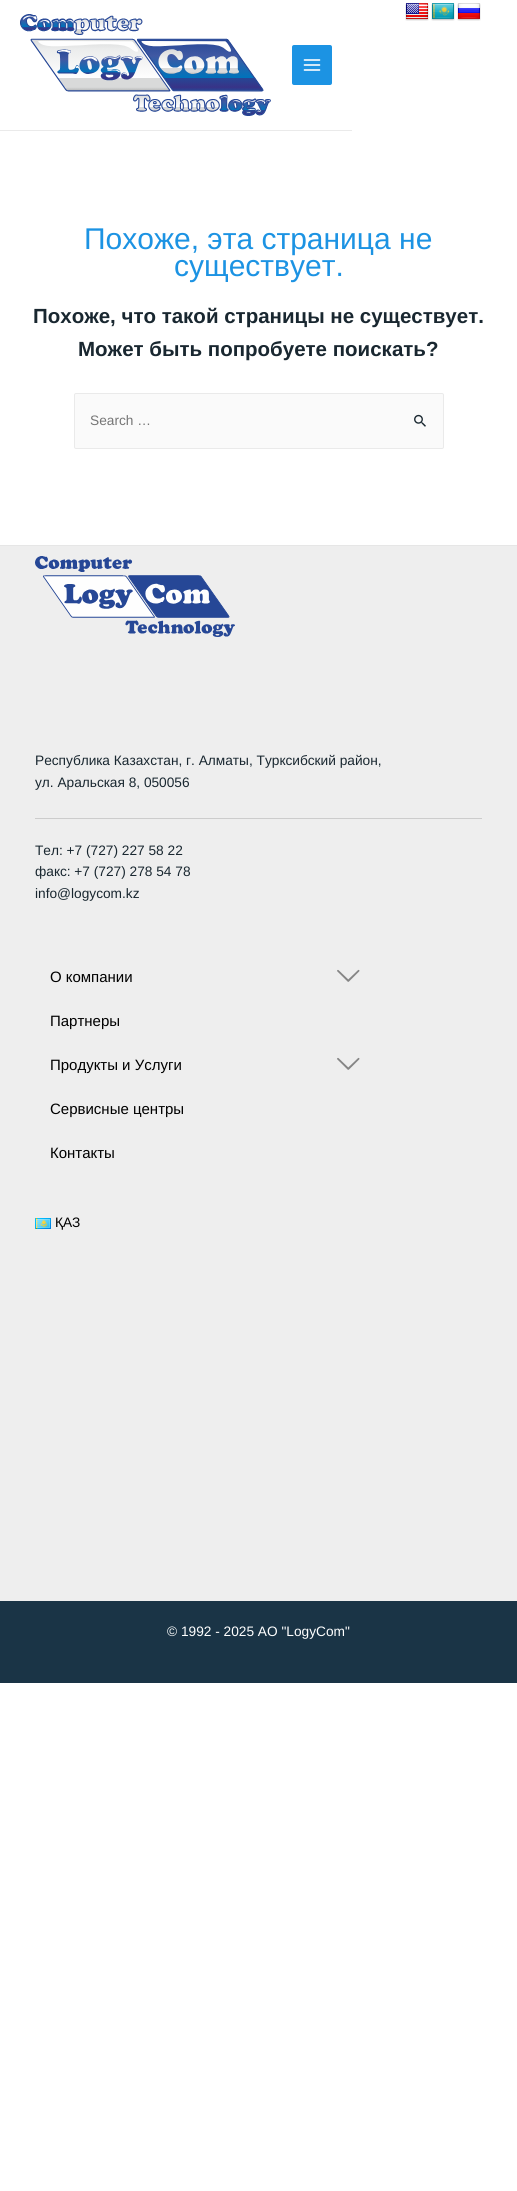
#include <cairo.h>
#include <math.h>
#include <stddef.h>


static void set_color(cairo_t *cr, unsigned color) {
    cairo_set_source_rgb(cr, (color >> 16) / 255.0, (color >> 8 & 255) / 255.0, (color & 255) / 255.0);
}

static void draw_text(cairo_t *cr, double x, double y, const char *s, const char *family, double size, int italic, int bold, unsigned color) {
    cairo_select_font_face(cr, family, italic ? CAIRO_FONT_SLANT_ITALIC : CAIRO_FONT_SLANT_NORMAL,
        bold ? CAIRO_FONT_WEIGHT_BOLD : CAIRO_FONT_WEIGHT_NORMAL);
    cairo_set_font_size(cr, size);
    set_color(cr, color);
    cairo_move_to(cr, x, y);
    cairo_show_text(cr, s);
}

static void fill_rect(cairo_t *cr, double x, double y, double w, double h, unsigned color) {
    set_color(cr, color);
    cairo_rectangle(cr, x, y, w, h);
    cairo_fill(cr);
}

static void rounded_rect(cairo_t *cr, double x, double y, double w, double h, double r) {
    cairo_new_sub_path(cr);
    cairo_arc(cr, x + w - r, y + h - r, r, 0, M_PI / 2);
    cairo_arc(cr, x + r, y + h - r, r, M_PI / 2, M_PI);
    cairo_arc(cr, x + r, y + r, r, M_PI, 1.5 * M_PI);
    cairo_arc(cr, x + w - r, y + r, r, 1.5 * M_PI, 2 * M_PI);
    cairo_close_path(cr);
}

static void draw_image(cairo_t *cr, const char *path, double x, double y, double w, double h) {
    cairo_surface_t *image = cairo_image_surface_create_from_png(path);
    cairo_save(cr);
    cairo_set_source_surface(cr, image, x, y);
    cairo_rectangle(cr, x, y, w, h);
    cairo_fill(cr);
    cairo_restore(cr);
    cairo_surface_destroy(image);
}

int main(void) {
    cairo_surface_t *surface = cairo_image_surface_create(CAIRO_FORMAT_RGB24, 517, 2191);
    cairo_t *cr = cairo_create(surface);
    cairo_font_options_t *options = cairo_font_options_create();
    cairo_font_options_set_hint_metrics(options, CAIRO_HINT_METRICS_OFF);
    cairo_font_options_set_hint_style(options, CAIRO_HINT_STYLE_NONE);
    cairo_set_font_options(cr, options);
    cairo_set_miter_limit(cr, 4);
    set_color(cr, 0xFFFFFF);
    cairo_paint(cr);
    draw_image(cr, "assets/img1.png", 405, 3, 24, 18);
    draw_image(cr, "assets/img2.png", 431, 3, 24, 18);
    draw_image(cr, "assets/img3.png", 457, 3, 24, 18);
    fill_rect(cr, 0, 130, 352, 1, 0xEAEAEA);
    draw_image(cr, "assets/img4.png", 20, 14, 251, 102);
    set_color(cr, 0x1C93E3);
    rounded_rect(cr, 292, 45, 40, 40, 2);
    cairo_fill(cr);
    draw_image(cr, "assets/img5.png", 303, 59, 18, 12);
    draw_text(cr, 84, 249, "Похоже, эта страница не", "Liberation Sans", 30, 0, 0, 0x1C93E3);
    draw_text(cr, 174, 276, "существует.", "Liberation Sans", 30, 0, 0, 0x1C93E3);
    draw_text(cr, 33, 323, "Похоже, что такой страницы не существует.", "Liberation Sans", 20.5, 0, 1, 0x192730);
    draw_text(cr, 78, 356, "Может быть попробуете поискать?", "Liberation Sans", 20.5, 0, 1, 0x192730);
    set_color(cr, 0xFAFAFA);
    rounded_rect(cr, 74.5, 393.5, 369, 55, 1.5);
    cairo_fill_preserve(cr);
    set_color(cr, 0xEAEAEA);
    cairo_set_line_width(cr, 1);
    cairo_stroke(cr);
    draw_text(cr, 90, 425, "Search …", "Liberation Sans", 13.7, 0, 0, 0x757575);
    draw_image(cr, "assets/img6.png", 414, 414, 12, 13);
    fill_rect(cr, 0, 1601, 517, 82, 0x1A3446);
    fill_rect(cr, 0, 546, 517, 1055, 0xEEEEEE);
    fill_rect(cr, 0, 545, 517, 1, 0xE6E6E6);
    draw_image(cr, "assets/img7.png", 35, 556, 200, 81);
    draw_text(cr, 35, 765, "Республика Казахстан, г. Алматы, Турксибский район,", "Liberation Sans", 13.7, 0, 0, 0x192730);
    draw_text(cr, 35, 787, "ул. Аральская 8, 050056", "Liberation Sans", 13.7, 0, 0, 0x192730);
    fill_rect(cr, 35, 818, 447, 1, 0xCCCCCC);
    draw_text(cr, 35, 855, "Тел: +7 (727) 227 58 22", "Liberation Sans", 13.7, 0, 0, 0x192730);
    draw_text(cr, 35, 876, "факс: +7 (727) 278 54 78", "Liberation Sans", 13.7, 0, 0, 0x192730);
    draw_text(cr, 35, 898, "info@logycom.kz", "Liberation Sans", 13.7, 0, 0, 0x192730);
    draw_text(cr, 50, 982, "О компании", "Liberation Sans", 15, 0, 0, 0x000000);
    draw_image(cr, "assets/img8.png", 337, 969, 23, 13);
    draw_text(cr, 50, 1026, "Партнеры", "Liberation Sans", 15, 0, 0, 0x000000);
    draw_text(cr, 50, 1070, "Продукты и Услуги", "Liberation Sans", 15, 0, 0, 0x000000);
    draw_image(cr, "assets/img8.png", 337, 1057, 23, 13);
    draw_text(cr, 50, 1114, "Сервисные центры", "Liberation Sans", 15, 0, 0, 0x000000);
    draw_text(cr, 50, 1158, "Контакты", "Liberation Sans", 15, 0, 0, 0x000000);
    draw_image(cr, "assets/img9.png", 35, 1218, 16, 11);
    draw_text(cr, 55, 1227, "ҚАЗ", "Liberation Sans", 13.7, 0, 0, 0x000000);
    draw_text(cr, 167, 1636, "© 1992 - 2025 АО \"LogyCom\"", "Liberation Sans", 13.7, 0, 0, 0xFFFFFF);
    cairo_surface_write_to_png(surface, "output.png");
    cairo_font_options_destroy(options);
    cairo_destroy(cr);
    cairo_surface_destroy(surface);
    return 0;
}
